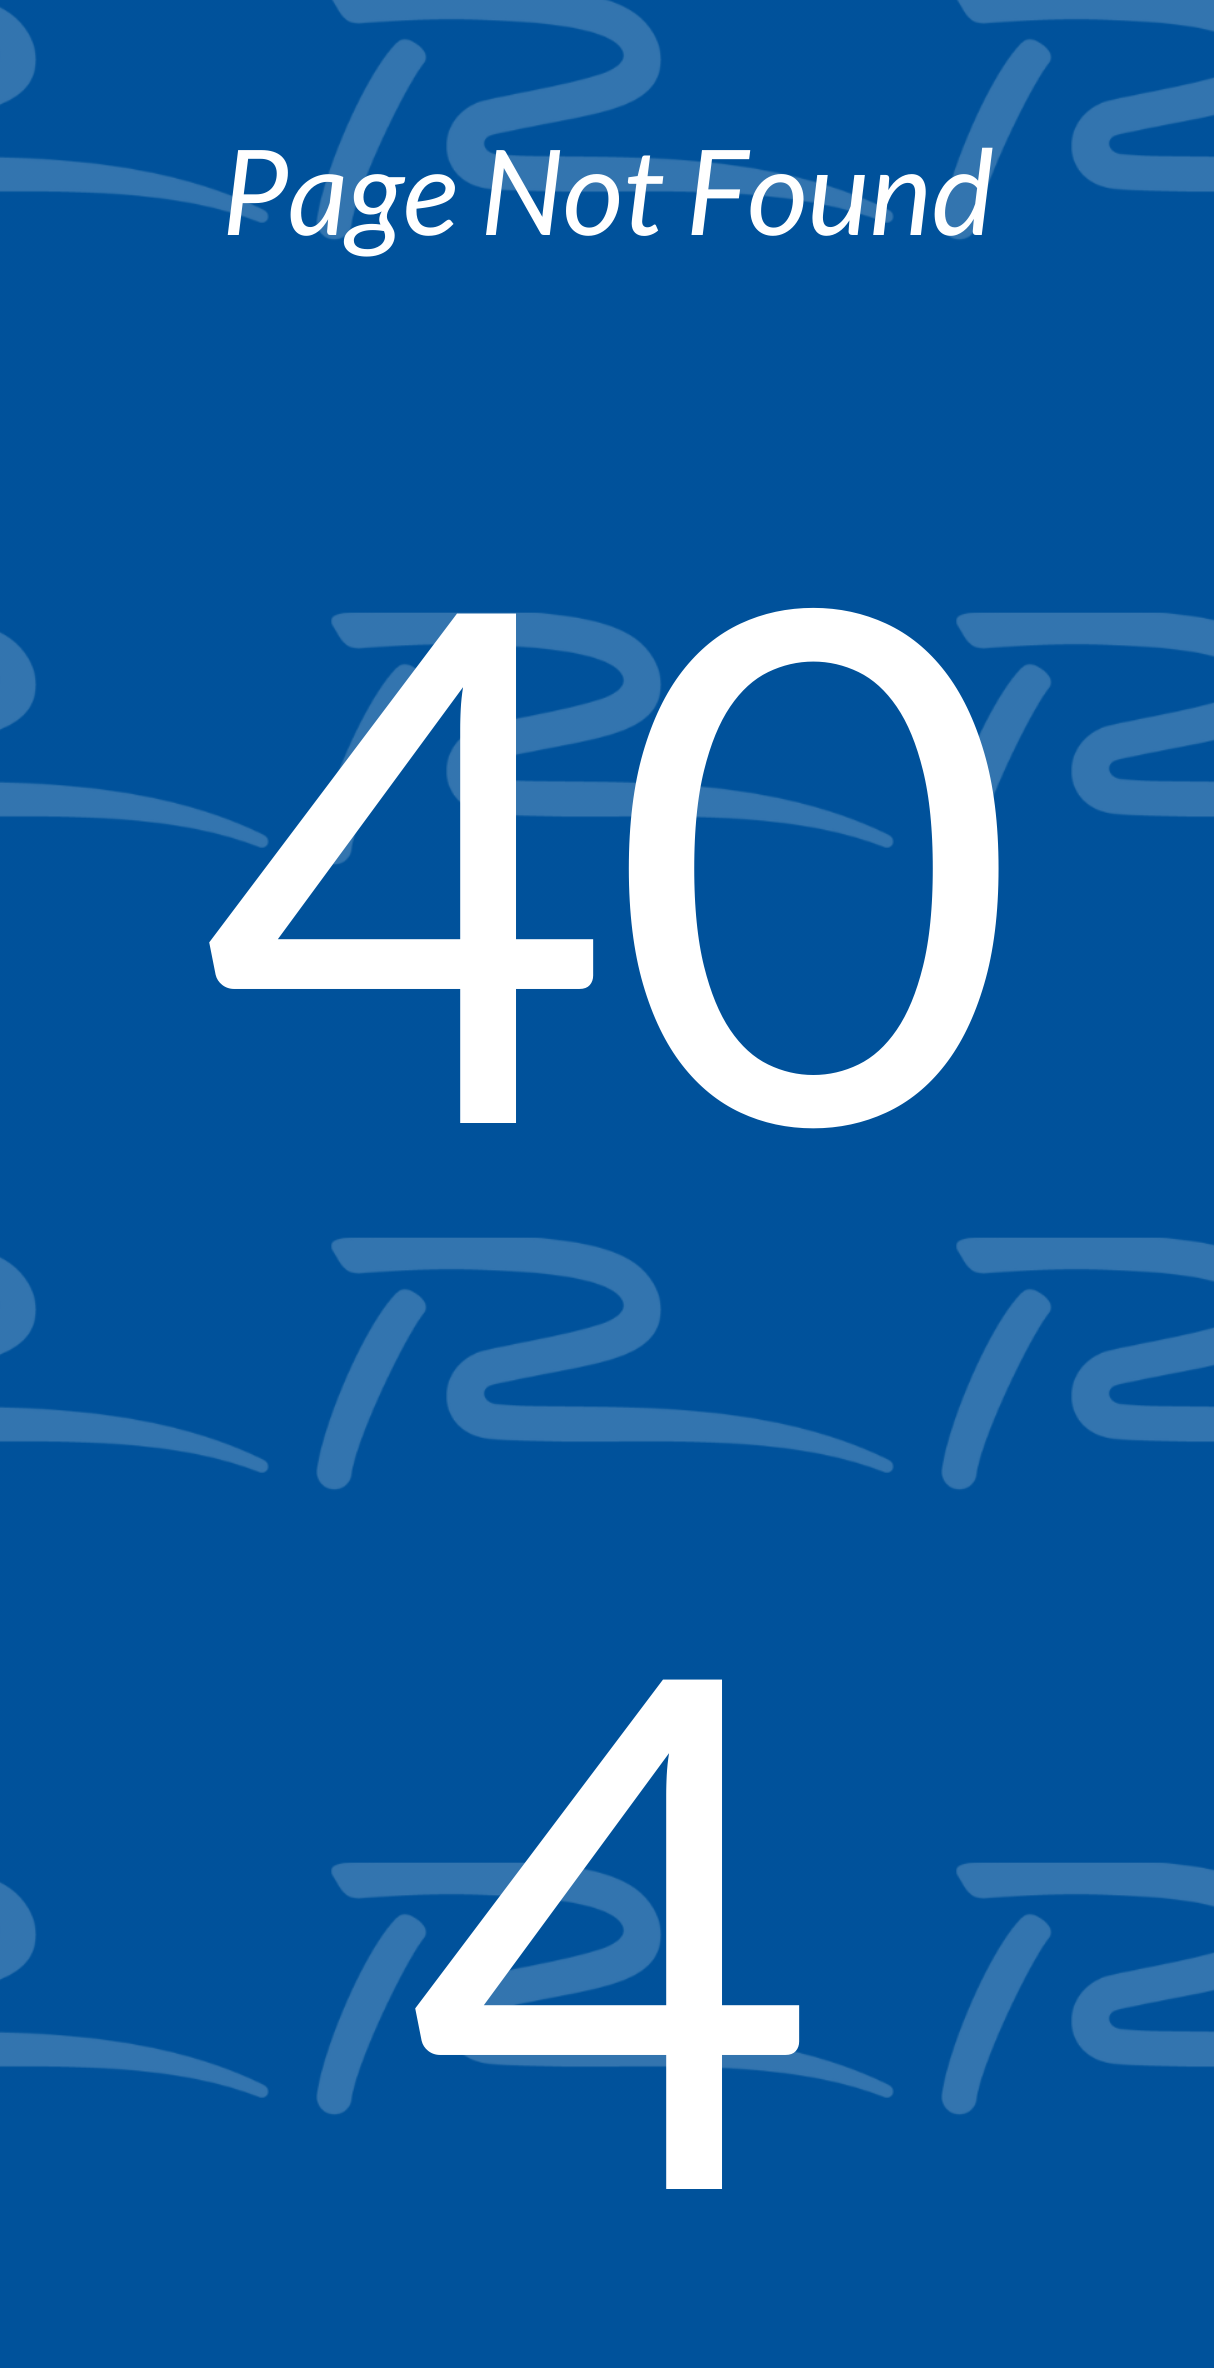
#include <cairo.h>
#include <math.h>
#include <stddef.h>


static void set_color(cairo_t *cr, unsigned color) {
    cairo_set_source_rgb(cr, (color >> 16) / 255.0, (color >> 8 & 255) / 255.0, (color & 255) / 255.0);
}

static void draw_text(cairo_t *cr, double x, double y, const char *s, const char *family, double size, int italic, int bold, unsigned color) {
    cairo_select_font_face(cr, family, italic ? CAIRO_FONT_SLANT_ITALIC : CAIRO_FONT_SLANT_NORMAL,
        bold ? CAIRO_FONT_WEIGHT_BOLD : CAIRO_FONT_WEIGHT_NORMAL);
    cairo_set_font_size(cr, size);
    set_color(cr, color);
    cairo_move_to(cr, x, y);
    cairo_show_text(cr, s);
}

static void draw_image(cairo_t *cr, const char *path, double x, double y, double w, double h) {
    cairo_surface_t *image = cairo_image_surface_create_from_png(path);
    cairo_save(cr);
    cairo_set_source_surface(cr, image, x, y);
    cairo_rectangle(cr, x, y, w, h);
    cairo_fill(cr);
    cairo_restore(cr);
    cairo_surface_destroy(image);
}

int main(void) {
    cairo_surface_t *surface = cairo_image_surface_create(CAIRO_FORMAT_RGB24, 1214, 2368);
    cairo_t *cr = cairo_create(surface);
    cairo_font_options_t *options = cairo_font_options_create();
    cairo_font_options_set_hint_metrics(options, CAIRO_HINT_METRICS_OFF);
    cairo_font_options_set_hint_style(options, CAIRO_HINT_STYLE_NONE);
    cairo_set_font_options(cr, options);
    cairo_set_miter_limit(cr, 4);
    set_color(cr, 0x00529B);
    cairo_paint(cr);
    draw_image(cr, "assets/img1.png", 0, 0, 1214, 2116);
    draw_text(cr, 221, 235, "Page Not Found", "Lato", 118.5, 1, 0, 0xFFFFFF);
    draw_text(cr, 195, 1123, "40", "Lato", 711, 0, 0, 0xFFFFFF);
    draw_text(cr, 401, 2189, "4", "Lato", 711, 0, 0, 0xFFFFFF);
    cairo_surface_write_to_png(surface, "output.png");
    cairo_font_options_destroy(options);
    cairo_destroy(cr);
    cairo_surface_destroy(surface);
    return 0;
}
